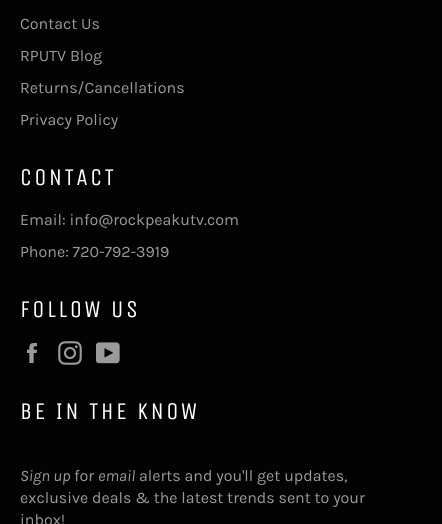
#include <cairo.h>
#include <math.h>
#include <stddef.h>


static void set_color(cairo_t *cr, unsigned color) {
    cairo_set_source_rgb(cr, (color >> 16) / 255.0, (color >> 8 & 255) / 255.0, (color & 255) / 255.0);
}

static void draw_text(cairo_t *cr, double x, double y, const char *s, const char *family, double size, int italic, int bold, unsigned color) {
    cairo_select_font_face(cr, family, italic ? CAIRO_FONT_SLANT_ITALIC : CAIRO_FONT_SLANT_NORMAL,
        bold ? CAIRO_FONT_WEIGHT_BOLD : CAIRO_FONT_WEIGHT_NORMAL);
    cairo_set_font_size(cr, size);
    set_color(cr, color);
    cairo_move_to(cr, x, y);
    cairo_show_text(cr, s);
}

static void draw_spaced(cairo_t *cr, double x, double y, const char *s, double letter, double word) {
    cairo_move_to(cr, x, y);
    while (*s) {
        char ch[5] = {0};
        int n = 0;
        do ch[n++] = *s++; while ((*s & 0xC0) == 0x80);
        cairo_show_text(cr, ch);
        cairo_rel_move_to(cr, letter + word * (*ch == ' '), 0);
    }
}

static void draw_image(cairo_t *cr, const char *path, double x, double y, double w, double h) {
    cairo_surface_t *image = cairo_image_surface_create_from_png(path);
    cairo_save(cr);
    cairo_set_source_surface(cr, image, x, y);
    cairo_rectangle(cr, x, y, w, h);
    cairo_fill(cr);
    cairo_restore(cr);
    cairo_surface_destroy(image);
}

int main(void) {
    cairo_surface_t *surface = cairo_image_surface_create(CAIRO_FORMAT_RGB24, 442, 524);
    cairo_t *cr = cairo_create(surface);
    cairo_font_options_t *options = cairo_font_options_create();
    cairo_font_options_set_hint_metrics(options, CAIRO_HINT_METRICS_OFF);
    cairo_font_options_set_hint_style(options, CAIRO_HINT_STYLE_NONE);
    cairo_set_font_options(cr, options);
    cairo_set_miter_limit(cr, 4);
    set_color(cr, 0x030303);
    cairo_paint(cr);
    draw_text(cr, 20, 29, "Contact Us", "Karla", 16, 0, 0, 0x9A9A9A);
    draw_text(cr, 20, 61, "RPUTV Blog", "Karla", 16, 0, 0, 0x9A9A9A);
    draw_text(cr, 20, 93, "Returns/Cancellations", "Karla", 16, 0, 0, 0x9A9A9A);
    draw_text(cr, 20, 125, "Privacy Policy", "Karla", 16, 0, 0, 0x9A9A9A);
    cairo_select_font_face(cr, "Unica One", CAIRO_FONT_SLANT_NORMAL, CAIRO_FONT_WEIGHT_NORMAL);
    cairo_set_font_size(cr, 24);
    set_color(cr, 0xFFFFFF);
    draw_spaced(cr, 20, 185, "CONTACT", 2.4, 0);
    draw_text(cr, 20, 225, "Email: info@rockpeakutv.com", "Karla", 16, 0, 0, 0x9A9A9A);
    draw_text(cr, 20, 257, "Phone: 720-792-3919", "Karla", 16, 0, 0, 0x9A9A9A);
    cairo_select_font_face(cr, "Unica One", CAIRO_FONT_SLANT_NORMAL, CAIRO_FONT_WEIGHT_NORMAL);
    cairo_set_font_size(cr, 24);
    set_color(cr, 0xFFFFFF);
    draw_spaced(cr, 20, 317, "FOLLOW US", 2.4, 0);
    draw_image(cr, "assets/img1.png", 27, 343, 10, 20);
    draw_image(cr, "assets/img2.png", 58, 341, 24, 24);
    draw_image(cr, "assets/img3.png", 96, 342, 24, 22);
    draw_spaced(cr, 20, 419, "BE IN THE KNOW", 2.4, 0);
    draw_text(cr, 20, 481, "Sign up", "Karla", 16, 1, 0, 0x9A9A9A);
    draw_text(cr, 74, 481, "for", "Karla", 16, 0, 0, 0x9A9A9A);
    draw_text(cr, 98, 481, "email", "Karla", 16, 1, 0, 0x9A9A9A);
    draw_text(cr, 139, 481, "alerts and you'll get updates,", "Karla", 16, 0, 0, 0x9A9A9A);
    draw_text(cr, 20, 503, "exclusive deals & the latest trends sent to your", "Karla", 16, 0, 0, 0x9A9A9A);
    draw_text(cr, 20, 525, "inbox!", "Karla", 16, 0, 0, 0x9A9A9A);
    cairo_surface_write_to_png(surface, "output.png");
    cairo_font_options_destroy(options);
    cairo_destroy(cr);
    cairo_surface_destroy(surface);
    return 0;
}
